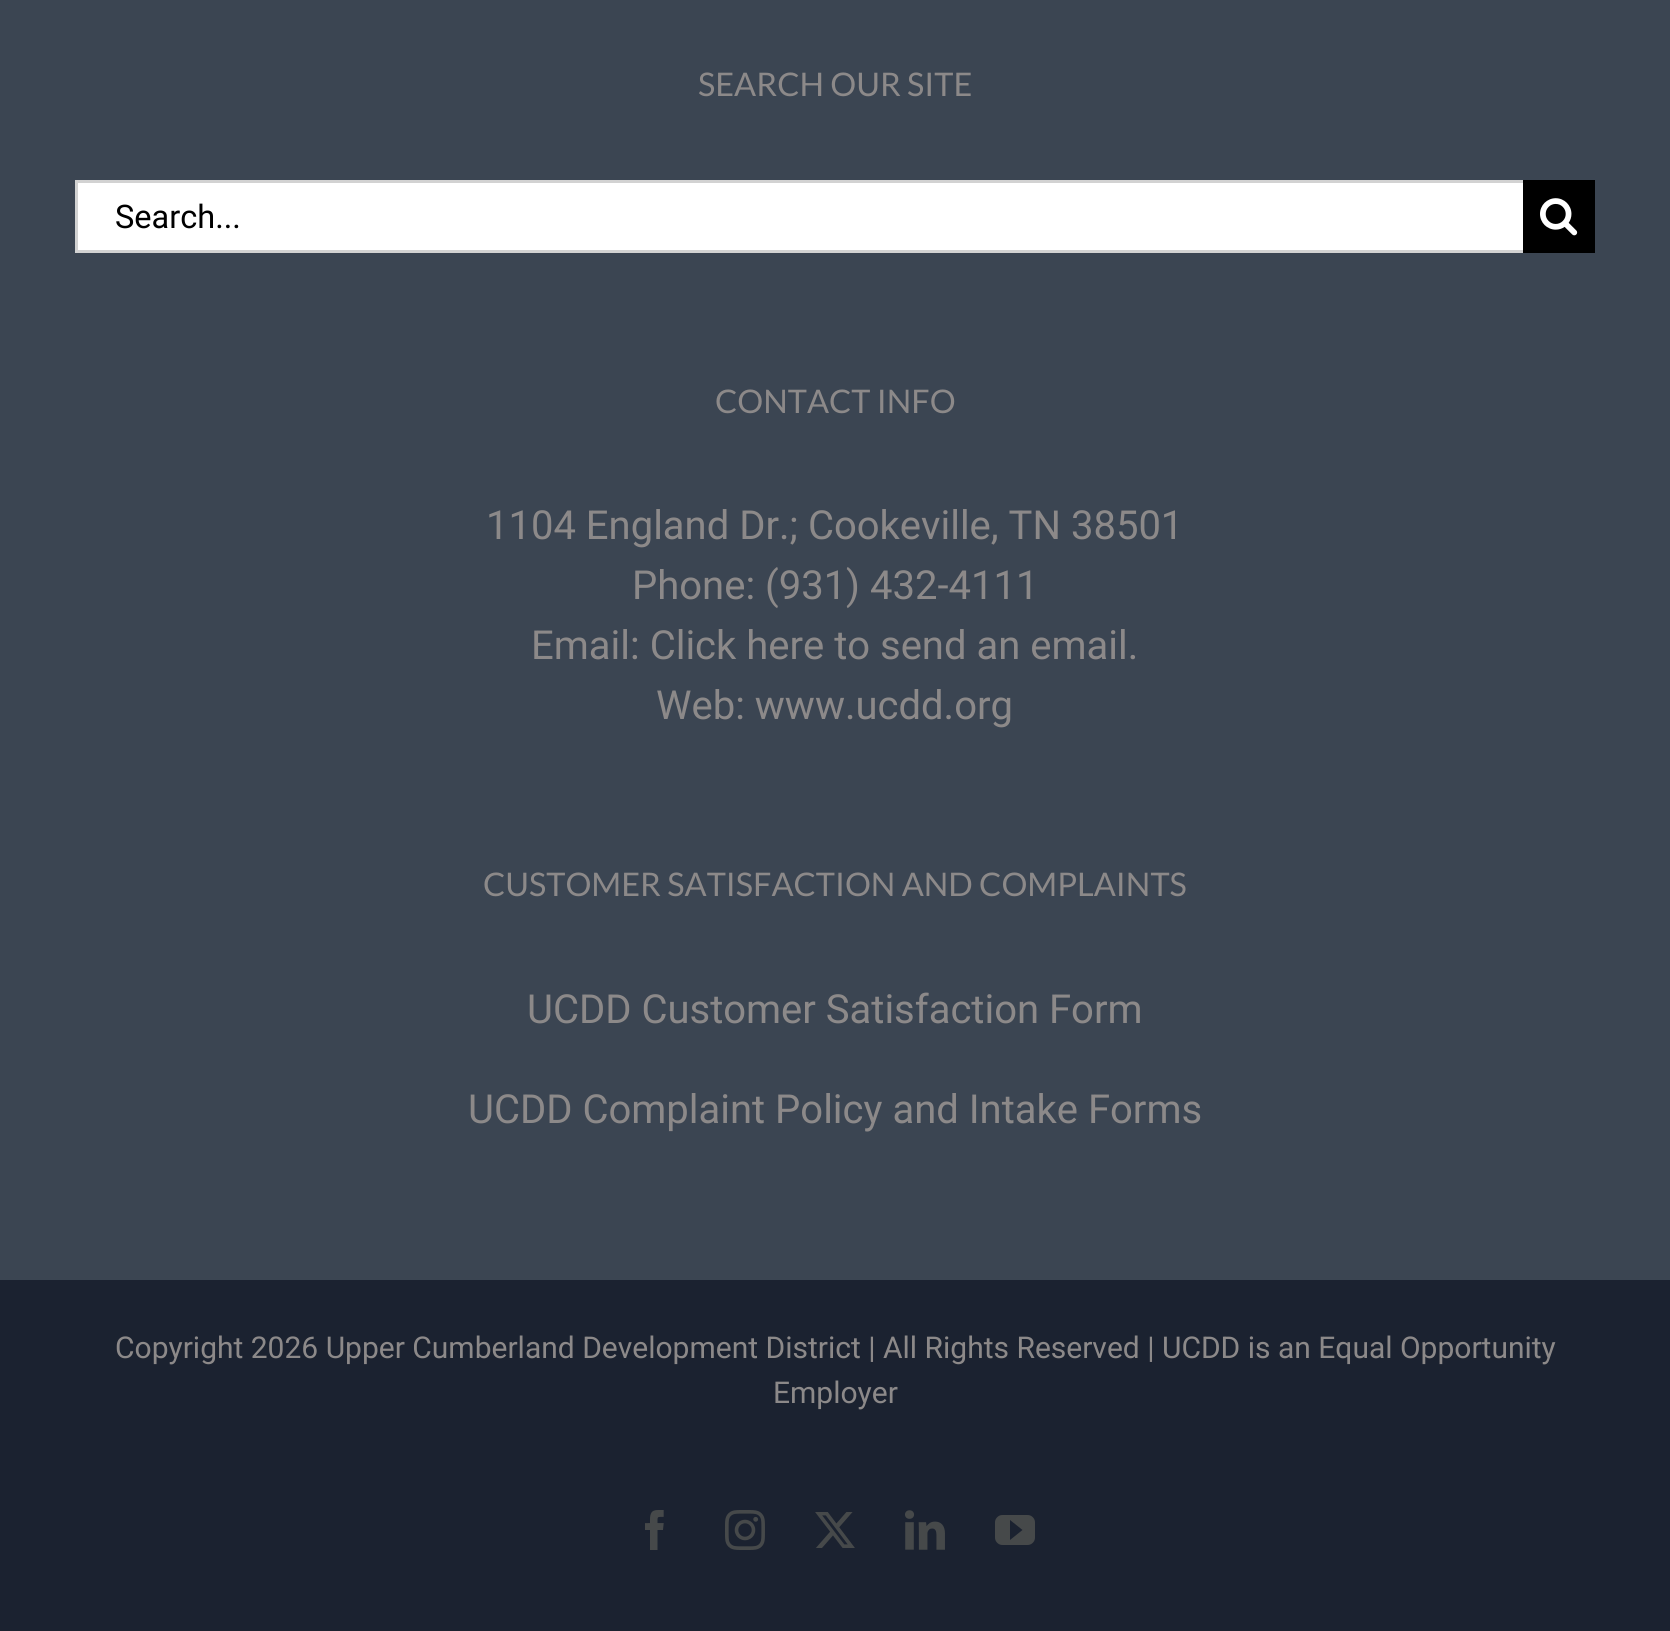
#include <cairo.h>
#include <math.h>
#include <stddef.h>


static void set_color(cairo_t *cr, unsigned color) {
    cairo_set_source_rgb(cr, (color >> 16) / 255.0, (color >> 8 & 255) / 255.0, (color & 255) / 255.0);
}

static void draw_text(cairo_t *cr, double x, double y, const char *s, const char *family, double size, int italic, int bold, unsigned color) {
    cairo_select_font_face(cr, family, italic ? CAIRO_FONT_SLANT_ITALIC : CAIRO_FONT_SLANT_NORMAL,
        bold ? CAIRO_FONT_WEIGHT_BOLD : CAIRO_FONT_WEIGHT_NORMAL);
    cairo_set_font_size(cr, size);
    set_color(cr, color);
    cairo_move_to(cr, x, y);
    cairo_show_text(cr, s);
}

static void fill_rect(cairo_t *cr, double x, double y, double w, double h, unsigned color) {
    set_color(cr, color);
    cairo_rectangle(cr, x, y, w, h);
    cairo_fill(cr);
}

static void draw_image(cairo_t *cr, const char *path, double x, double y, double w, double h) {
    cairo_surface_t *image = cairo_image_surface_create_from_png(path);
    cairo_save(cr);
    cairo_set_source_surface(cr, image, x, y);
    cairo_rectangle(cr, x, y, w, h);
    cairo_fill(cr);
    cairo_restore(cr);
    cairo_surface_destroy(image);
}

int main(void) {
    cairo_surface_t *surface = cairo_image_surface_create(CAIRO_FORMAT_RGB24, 1670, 1631);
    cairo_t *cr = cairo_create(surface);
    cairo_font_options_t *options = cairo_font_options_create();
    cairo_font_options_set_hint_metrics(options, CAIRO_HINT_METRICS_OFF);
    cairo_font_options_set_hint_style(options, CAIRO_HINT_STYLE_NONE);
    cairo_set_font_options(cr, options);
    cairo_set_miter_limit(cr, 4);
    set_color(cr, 0x3B4552);
    cairo_paint(cr);
    draw_text(cr, 698, 96, "SEARCH OUR SITE", "Lato", 32.5, 0, 0, 0x8C8989);
    fill_rect(cr, 78, 183, 1445, 67, 0xFFFFFF);
    fill_rect(cr, 75, 180, 1448, 3, 0xD2D2D2);
    fill_rect(cr, 75, 250, 1448, 3, 0xD2D2D2);
    fill_rect(cr, 75, 180, 3, 73, 0xD2D2D2);
    draw_text(cr, 115, 228, "Search...", "Roboto", 32.5, 0, 0, 0x000000);
    fill_rect(cr, 1523, 180, 72, 73, 0x000000);
    draw_image(cr, "assets/img1.png", 1540, 198, 38, 38);
    draw_text(cr, 715, 413, "CONTACT INFO", "Lato", 32.5, 0, 0, 0x8C8989);
    draw_text(cr, 486, 539, "1104 England Dr.; Cookeville, TN 38501", "Roboto", 40, 0, 0, 0x8C8989);
    draw_text(cr, 632, 599, "Phone: (931) 432-4111", "Roboto", 40, 0, 0, 0x8C8989);
    draw_text(cr, 531, 659, "Email: Click here to send an email.", "Roboto", 40, 0, 0, 0x8C8989);
    draw_text(cr, 656, 719, "Web: www.ucdd.org", "Roboto", 40, 0, 0, 0x8C8989);
    draw_text(cr, 483, 896, "CUSTOMER SATISFACTION AND COMPLAINTS", "Lato", 32.5, 0, 0, 0x8C8989);
    draw_text(cr, 527, 1023, "UCDD Customer Satisfaction Form", "Roboto", 40, 0, 0, 0x8C8989);
    draw_text(cr, 468, 1123, "UCDD Complaint Policy and Intake Forms", "Roboto", 40, 0, 0, 0x8C8989);
    fill_rect(cr, 0, 1280, 1670, 351, 0x1B2230);
    draw_text(cr, 115, 1358, "Copyright 2026 Upper Cumberland Development District | All Rights Reserved | UCDD is an Equal Opportunity", "Roboto", 30, 0, 0, 0x8C8989);
    draw_text(cr, 773, 1403, "Employer", "Roboto", 30, 0, 0, 0x8C8989);
    draw_image(cr, "assets/img2.png", 645, 1510, 19, 40);
    draw_image(cr, "assets/img3.png", 725, 1510, 40, 40);
    draw_image(cr, "assets/img4.png", 815, 1512, 40, 36);
    draw_image(cr, "assets/img5.png", 905, 1510, 40, 40);
    draw_image(cr, "assets/img6.png", 995, 1515, 40, 30);
    cairo_surface_write_to_png(surface, "output.png");
    cairo_font_options_destroy(options);
    cairo_destroy(cr);
    cairo_surface_destroy(surface);
    return 0;
}
